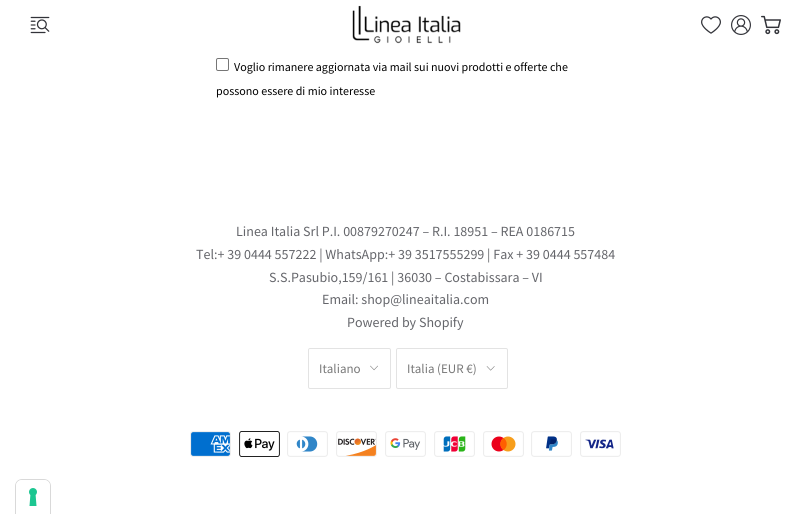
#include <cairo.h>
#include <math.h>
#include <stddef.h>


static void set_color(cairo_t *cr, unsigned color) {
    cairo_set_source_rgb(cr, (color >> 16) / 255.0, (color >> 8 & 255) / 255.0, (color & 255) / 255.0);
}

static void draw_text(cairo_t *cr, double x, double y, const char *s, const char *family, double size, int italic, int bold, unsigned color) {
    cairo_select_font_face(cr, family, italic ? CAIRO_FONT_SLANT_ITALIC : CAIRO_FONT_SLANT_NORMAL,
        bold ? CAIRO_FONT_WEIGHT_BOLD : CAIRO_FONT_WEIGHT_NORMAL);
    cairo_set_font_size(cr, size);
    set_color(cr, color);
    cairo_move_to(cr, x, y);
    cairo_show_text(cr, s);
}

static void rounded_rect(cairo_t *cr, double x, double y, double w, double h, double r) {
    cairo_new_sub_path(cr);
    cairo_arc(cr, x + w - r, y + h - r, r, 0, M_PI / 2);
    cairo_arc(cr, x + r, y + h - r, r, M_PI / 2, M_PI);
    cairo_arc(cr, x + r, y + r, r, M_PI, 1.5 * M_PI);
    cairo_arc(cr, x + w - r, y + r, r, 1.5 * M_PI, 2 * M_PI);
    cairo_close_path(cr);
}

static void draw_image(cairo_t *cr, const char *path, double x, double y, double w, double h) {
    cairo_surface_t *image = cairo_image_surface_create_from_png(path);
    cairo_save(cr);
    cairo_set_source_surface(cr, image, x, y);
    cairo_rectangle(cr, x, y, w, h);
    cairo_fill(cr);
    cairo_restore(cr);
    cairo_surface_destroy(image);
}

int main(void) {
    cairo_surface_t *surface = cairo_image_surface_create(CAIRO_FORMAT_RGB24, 811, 514);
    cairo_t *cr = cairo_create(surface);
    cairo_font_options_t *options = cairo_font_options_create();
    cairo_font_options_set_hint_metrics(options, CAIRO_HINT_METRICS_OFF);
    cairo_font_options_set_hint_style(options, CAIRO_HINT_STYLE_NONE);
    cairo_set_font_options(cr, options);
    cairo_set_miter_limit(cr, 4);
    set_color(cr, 0xFFFFFF);
    cairo_paint(cr);
    draw_image(cr, "assets/img1.png", 30, 16, 20, 18);
    draw_image(cr, "assets/img2.png", 352, 5, 109, 39);
    draw_image(cr, "assets/img3.png", 701, 16, 20, 18);
    draw_image(cr, "assets/img4.png", 731, 15, 20, 20);
    draw_image(cr, "assets/img5.png", 761, 15, 20, 20);
    rounded_rect(cr, 216.5, 58.5, 12, 12, 1.5);
    set_color(cr, 0x767676);
    cairo_set_line_width(cr, 1);
    cairo_stroke(cr);
    draw_text(cr, 234, 71, "Voglio rimanere aggiornata via mail sui nuovi prodotti e offerte che", "Source Sans Pro", 12, 0, 0, 0x000000);
    draw_text(cr, 216, 95, "possono essere di mio interesse", "Source Sans Pro", 12, 0, 0, 0x000000);
    draw_text(cr, 236, 236, "Linea Italia Srl P.I. 00879270247 – R.I. 18951 – REA 0186715", "Source Sans Pro", 14, 0, 0, 0x65666B);
    draw_text(cr, 196, 259, "Tel:+ 39 0444 557222 | WhatsApp:+ 39 3517555299 | Fax + 39 0444 557484", "Source Sans Pro", 14, 0, 0, 0x65666B);
    draw_text(cr, 269, 282, "S.S.Pasubio,159/161 | 36030 – Costabissara – VI", "Source Sans Pro", 14, 0, 0, 0x65666B);
    draw_text(cr, 322, 304, "Email: shop@lineaitalia.com", "Source Sans Pro", 14, 0, 0, 0x65666B);
    draw_text(cr, 347, 327, "Powered by Shopify", "Source Sans Pro", 14, 0, 0, 0x65666B);
    rounded_rect(cr, 308.5, 348.5, 82, 40, 1.5);
    set_color(cr, 0xE3E3E3);
    cairo_stroke(cr);
    draw_text(cr, 319, 373, "Italiano", "Source Sans Pro", 13, 0, 0, 0x787878);
    draw_image(cr, "assets/img6.png", 370, 365, 8, 6);
    rounded_rect(cr, 396.5, 348.5, 111, 40, 1.5);
    set_color(cr, 0xE3E3E3);
    cairo_stroke(cr);
    draw_text(cr, 407, 373, "Italia (EUR €)", "Source Sans Pro", 13, 0, 0, 0x787878);
    draw_image(cr, "assets/img7.png", 486, 366, 9, 5);
    draw_image(cr, "assets/img8.png", 190, 431, 41, 26);
    draw_image(cr, "assets/img9.png", 239, 431, 41, 26);
    draw_image(cr, "assets/img10.png", 287, 431, 41, 26);
    draw_image(cr, "assets/img11.png", 336, 431, 41, 26);
    draw_image(cr, "assets/img12.png", 385, 431, 41, 26);
    draw_image(cr, "assets/img13.png", 434, 431, 41, 26);
    draw_image(cr, "assets/img14.png", 483, 431, 41, 26);
    draw_image(cr, "assets/img15.png", 531, 431, 41, 26);
    draw_image(cr, "assets/img16.png", 580, 431, 41, 26);
    cairo_new_path(cr);
    cairo_move_to(cr, 22, 479.5);
    cairo_line_to(cr, 44, 479.5);
    cairo_curve_to(cr, 47.5, 479.5, 50.5, 482.5, 50.5, 486);
    cairo_line_to(cr, 50.5, 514.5);
    cairo_line_to(cr, 15.5, 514.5);
    cairo_line_to(cr, 15.5, 486);
    cairo_curve_to(cr, 15.5, 482.5, 18.5, 479.5, 22, 479.5);
    cairo_close_path(cr);
    set_color(cr, 0xD9D9D9);
    cairo_stroke(cr);
    set_color(cr, 0xFFFFFF);
    cairo_new_path(cr);
    cairo_move_to(cr, 22, 480);
    cairo_line_to(cr, 44, 480);
    cairo_curve_to(cr, 47.5, 480, 50, 482.5, 50, 486);
    cairo_line_to(cr, 50, 514);
    cairo_line_to(cr, 16, 514);
    cairo_line_to(cr, 16, 486);
    cairo_curve_to(cr, 16, 482.5, 18.5, 480, 22, 480);
    cairo_close_path(cr);
    cairo_fill(cr);
    draw_image(cr, "assets/img17.png", 29, 488, 8, 18);
    cairo_surface_write_to_png(surface, "output.png");
    cairo_font_options_destroy(options);
    cairo_destroy(cr);
    cairo_surface_destroy(surface);
    return 0;
}
